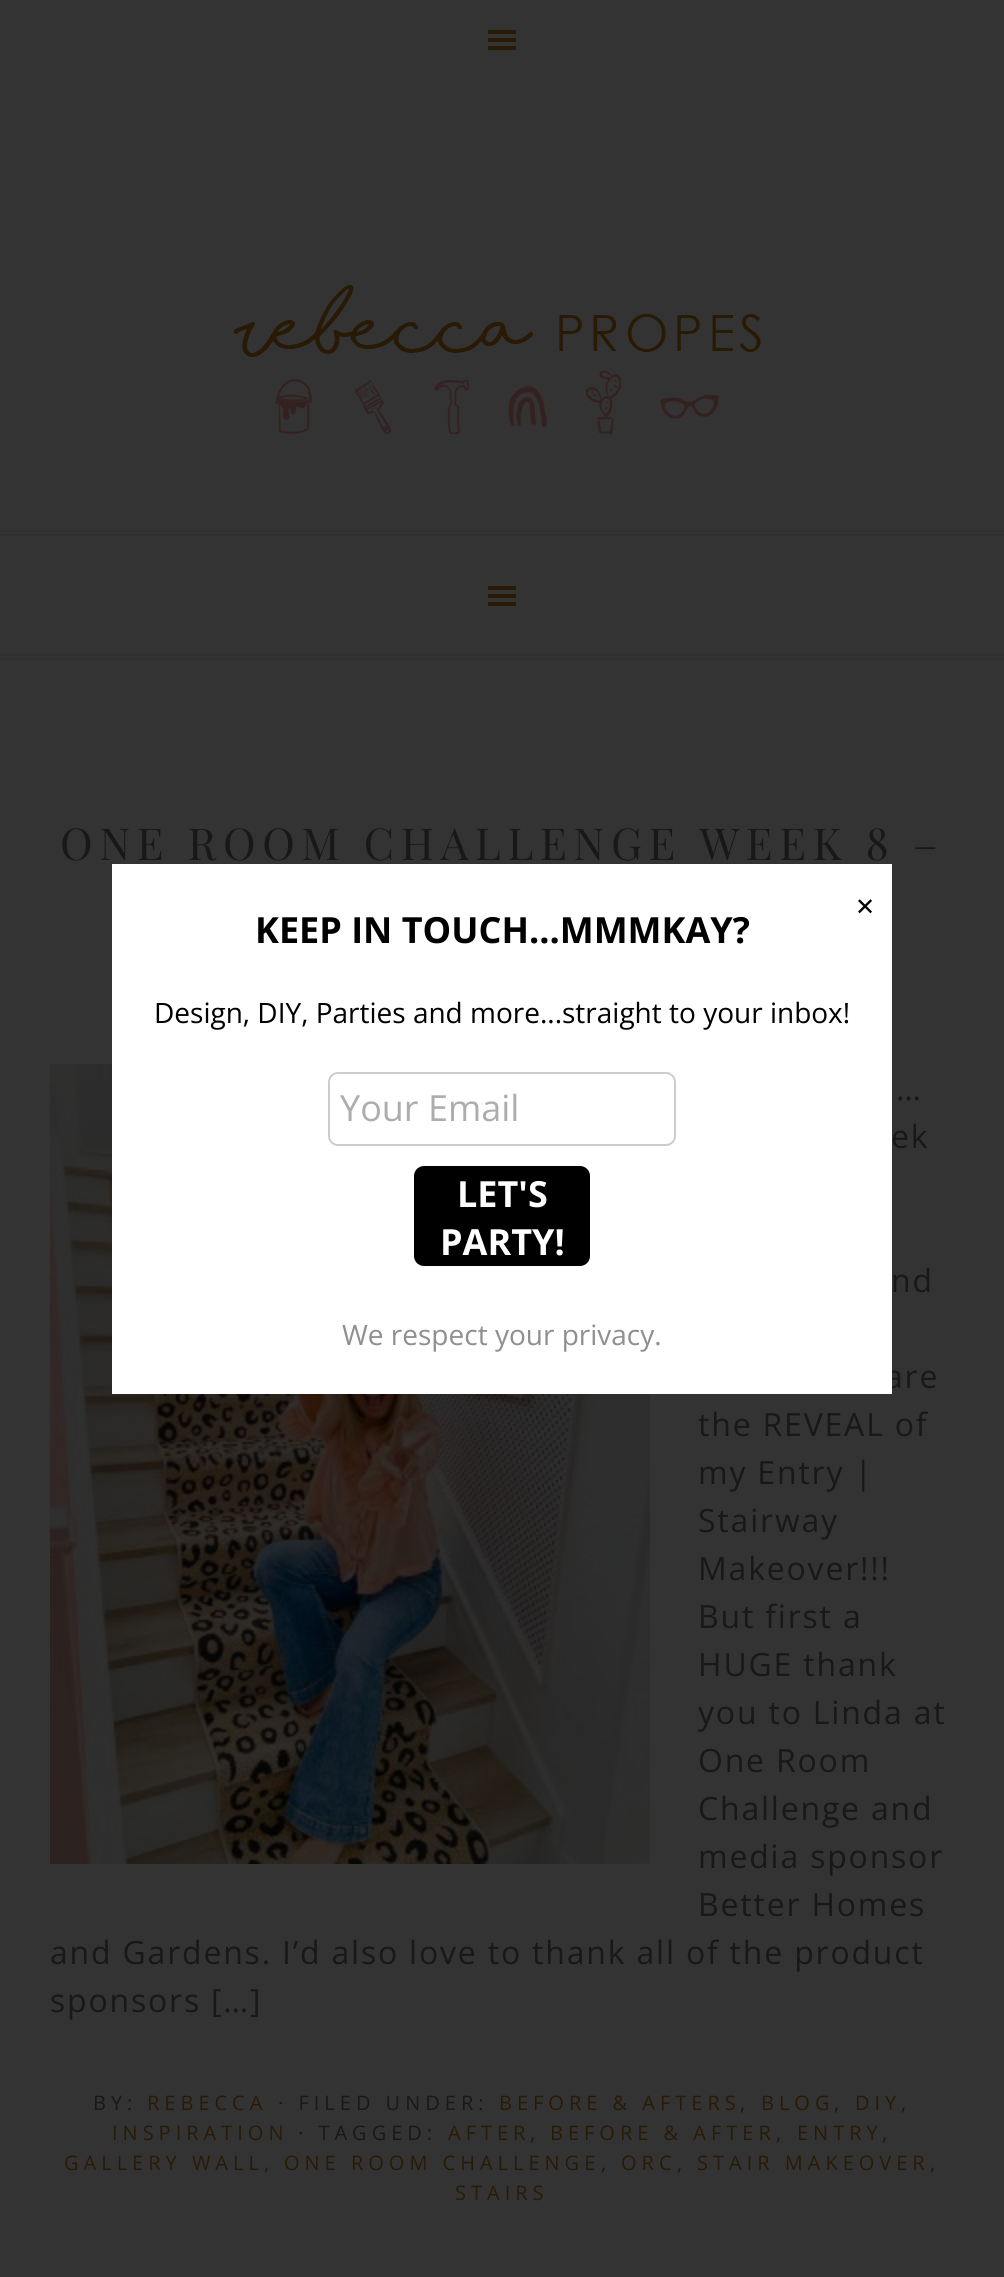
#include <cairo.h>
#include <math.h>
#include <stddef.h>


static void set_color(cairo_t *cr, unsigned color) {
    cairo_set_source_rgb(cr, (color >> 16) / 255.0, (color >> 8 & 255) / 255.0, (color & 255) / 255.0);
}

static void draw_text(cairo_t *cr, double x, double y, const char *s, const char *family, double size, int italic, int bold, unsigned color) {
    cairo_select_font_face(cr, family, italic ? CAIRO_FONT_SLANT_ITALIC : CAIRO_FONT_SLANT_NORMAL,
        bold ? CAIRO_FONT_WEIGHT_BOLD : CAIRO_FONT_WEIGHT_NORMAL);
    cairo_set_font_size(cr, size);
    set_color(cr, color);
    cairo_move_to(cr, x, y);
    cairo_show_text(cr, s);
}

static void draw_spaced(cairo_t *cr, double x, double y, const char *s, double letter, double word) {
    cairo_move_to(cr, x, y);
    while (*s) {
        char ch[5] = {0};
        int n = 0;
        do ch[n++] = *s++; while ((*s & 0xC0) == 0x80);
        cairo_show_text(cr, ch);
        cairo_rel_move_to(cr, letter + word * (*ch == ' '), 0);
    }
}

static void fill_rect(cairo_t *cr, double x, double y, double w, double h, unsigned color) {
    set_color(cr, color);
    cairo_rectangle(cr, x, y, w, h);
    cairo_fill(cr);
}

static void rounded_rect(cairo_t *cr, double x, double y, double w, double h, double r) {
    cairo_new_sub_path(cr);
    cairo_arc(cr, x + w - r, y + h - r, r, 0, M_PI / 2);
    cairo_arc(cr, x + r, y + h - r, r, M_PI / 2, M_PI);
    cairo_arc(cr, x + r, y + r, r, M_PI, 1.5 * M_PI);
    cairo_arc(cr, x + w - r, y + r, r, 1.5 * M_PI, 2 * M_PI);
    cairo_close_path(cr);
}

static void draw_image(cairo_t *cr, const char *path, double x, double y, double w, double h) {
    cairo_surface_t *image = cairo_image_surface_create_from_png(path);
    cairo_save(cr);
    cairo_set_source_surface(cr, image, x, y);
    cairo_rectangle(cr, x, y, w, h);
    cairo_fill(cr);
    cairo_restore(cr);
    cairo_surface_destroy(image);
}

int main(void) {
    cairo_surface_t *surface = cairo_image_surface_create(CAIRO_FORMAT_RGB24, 1004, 2277);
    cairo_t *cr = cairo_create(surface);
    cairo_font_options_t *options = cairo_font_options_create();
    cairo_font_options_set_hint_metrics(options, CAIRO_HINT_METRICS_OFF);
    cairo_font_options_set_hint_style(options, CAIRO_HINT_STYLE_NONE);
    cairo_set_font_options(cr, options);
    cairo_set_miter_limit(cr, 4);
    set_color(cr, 0x333333);
    cairo_paint(cr);
    draw_image(cr, "assets/img1.png", 488, 30, 28, 20);
    draw_image(cr, "assets/img2.png", 233, 285, 528, 149);
    fill_rect(cr, 0, 530, 1004, 2, 0x303030);
    fill_rect(cr, 0, 534, 1004, 2, 0x303030);
    fill_rect(cr, 0, 654, 1004, 2, 0x303030);
    fill_rect(cr, 0, 658, 1004, 2, 0x303030);
    draw_image(cr, "assets/img1.png", 488, 586, 28, 20);
    cairo_select_font_face(cr, "Playfair Display", CAIRO_FONT_SLANT_NORMAL, CAIRO_FONT_WEIGHT_NORMAL);
    cairo_set_font_size(cr, 44);
    set_color(cr, 0x181818);
    draw_spaced(cr, 60, 860, "ONE ROOM CHALLENGE WEEK 8 –", 6.6, 0);
    draw_image(cr, "assets/img3.png", 50, 1064, 600, 800);
    cairo_select_font_face(cr, "Open Sans", CAIRO_FONT_SLANT_NORMAL, CAIRO_FONT_WEIGHT_NORMAL);
    cairo_set_font_size(cr, 32);
    draw_spaced(cr, 896, 1100, "…", 1.8, 0);
    draw_spaced(cr, 891, 1148, "ek", 1.8, 0);
    draw_spaced(cr, 891, 1292, "nd", 1.8, 0);
    draw_spaced(cr, 885, 1388, "are", 1.8, 0);
    draw_spaced(cr, 698, 1436, "the REVEAL of", 1.8, 0);
    draw_spaced(cr, 698, 1484, "my Entry |", 1.8, 0);
    draw_spaced(cr, 698, 1532, "Stairway", 1.8, 0);
    draw_spaced(cr, 698, 1580, "Makeover!!!", 1.8, 0);
    draw_spaced(cr, 698, 1628, "But first a", 1.8, 0);
    draw_spaced(cr, 698, 1676, "HUGE thank", 1.8, 0);
    draw_spaced(cr, 698, 1724, "you to Linda at", 1.8, 0);
    draw_spaced(cr, 698, 1772, "One Room", 1.8, 0);
    draw_spaced(cr, 698, 1820, "Challenge and", 1.8, 0);
    draw_spaced(cr, 698, 1868, "media sponsor", 1.8, 0);
    draw_spaced(cr, 698, 1916, "Better Homes", 1.8, 0);
    draw_spaced(cr, 50, 1964, "and Gardens. I’d also love to thank all of the product", 1.8, 0);
    draw_spaced(cr, 50, 2012, "sponsors […]", 1.8, 0);
    cairo_set_font_size(cr, 20);
    draw_spaced(cr, 93, 2110, "BY:", 5, 0);
    set_color(cr, 0x291A06);
    draw_spaced(cr, 147, 2110, "REBECCA", 5, 0);
    set_color(cr, 0x181818);
    draw_spaced(cr, 278, 2110, "· FILED UNDER:", 5, 0);
    set_color(cr, 0x291A06);
    draw_spaced(cr, 499, 2110, "BEFORE & AFTERS", 5, 0);
    set_color(cr, 0x181818);
    draw_spaced(cr, 740, 2110, ",", 5, 0);
    set_color(cr, 0x291A06);
    draw_spaced(cr, 761, 2110, "BLOG", 5, 0);
    set_color(cr, 0x181818);
    draw_spaced(cr, 834, 2110, ",", 5, 0);
    set_color(cr, 0x291A06);
    draw_spaced(cr, 855, 2110, "DIY", 5, 0);
    set_color(cr, 0x181818);
    draw_spaced(cr, 901, 2110, ",", 5, 0);
    set_color(cr, 0x291A06);
    draw_spaced(cr, 112, 2140, "INSPIRATION", 5, 0);
    set_color(cr, 0x181818);
    draw_spaced(cr, 298, 2140, "· TAGGED:", 5, 0);
    set_color(cr, 0x291A06);
    draw_spaced(cr, 448, 2140, "AFTER", 5, 0);
    set_color(cr, 0x181818);
    draw_spaced(cr, 530, 2140, ",", 5, 0);
    set_color(cr, 0x291A06);
    draw_spaced(cr, 550, 2140, "BEFORE & AFTER", 5, 0);
    set_color(cr, 0x181818);
    draw_spaced(cr, 776, 2140, ",", 5, 0);
    set_color(cr, 0x291A06);
    draw_spaced(cr, 797, 2140, "ENTRY", 5, 0);
    set_color(cr, 0x181818);
    draw_spaced(cr, 882, 2140, ",", 5, 0);
    set_color(cr, 0x291A06);
    draw_spaced(cr, 64, 2170, "GALLERY WALL", 5, 0);
    set_color(cr, 0x181818);
    draw_spaced(cr, 264, 2170, ",", 5, 0);
    set_color(cr, 0x291A06);
    draw_spaced(cr, 284, 2170, "ONE ROOM CHALLENGE", 5, 0);
    set_color(cr, 0x181818);
    draw_spaced(cr, 601, 2170, ",", 5, 0);
    set_color(cr, 0x291A06);
    draw_spaced(cr, 621, 2170, "ORC", 5, 0);
    set_color(cr, 0x181818);
    draw_spaced(cr, 677, 2170, ",", 5, 0);
    set_color(cr, 0x291A06);
    draw_spaced(cr, 697, 2170, "STAIR MAKEOVER", 5, 0);
    set_color(cr, 0x181818);
    draw_spaced(cr, 930, 2170, ",", 5, 0);
    set_color(cr, 0x291A06);
    draw_spaced(cr, 455, 2200, "STAIRS", 5, 0);
    fill_rect(cr, 112, 864, 780, 530, 0xFFFFFF);
    cairo_select_font_face(cr, "DejaVu Sans", CAIRO_FONT_SLANT_NORMAL, CAIRO_FONT_WEIGHT_NORMAL);
    cairo_set_font_size(cr, 24);
    set_color(cr, 0x000000);
    draw_spaced(cr, 855, 915, "✕", 4, 0);
    draw_text(cr, 255, 943, "KEEP IN TOUCH...MMMKAY?", "Open Sans", 36, 0, 1, 0x000000);
    draw_text(cr, 154, 1023, "Design, DIY, Parties and more...straight to your inbox!", "Open Sans", 28, 0, 0, 0x000000);
    rounded_rect(cr, 329, 1073, 346, 72, 9);
    set_color(cr, 0xCCCCCC);
    cairo_stroke(cr);
    draw_text(cr, 340, 1121, "Your Email", "Open Sans", 36, 0, 0, 0xADADAD);
    set_color(cr, 0x000000);
    rounded_rect(cr, 414, 1166, 176, 100, 10);
    cairo_fill(cr);
    draw_text(cr, 457, 1207, "LET'S", "Open Sans", 36, 0, 1, 0xFFFFFF);
    draw_text(cr, 440, 1255, "PARTY!", "Open Sans", 36, 0, 1, 0xFFFFFF);
    draw_text(cr, 342, 1345, "We respect your privacy.", "Open Sans", 28, 0, 0, 0x8F8F8F);
    cairo_surface_write_to_png(surface, "output.png");
    cairo_font_options_destroy(options);
    cairo_destroy(cr);
    cairo_surface_destroy(surface);
    return 0;
}
